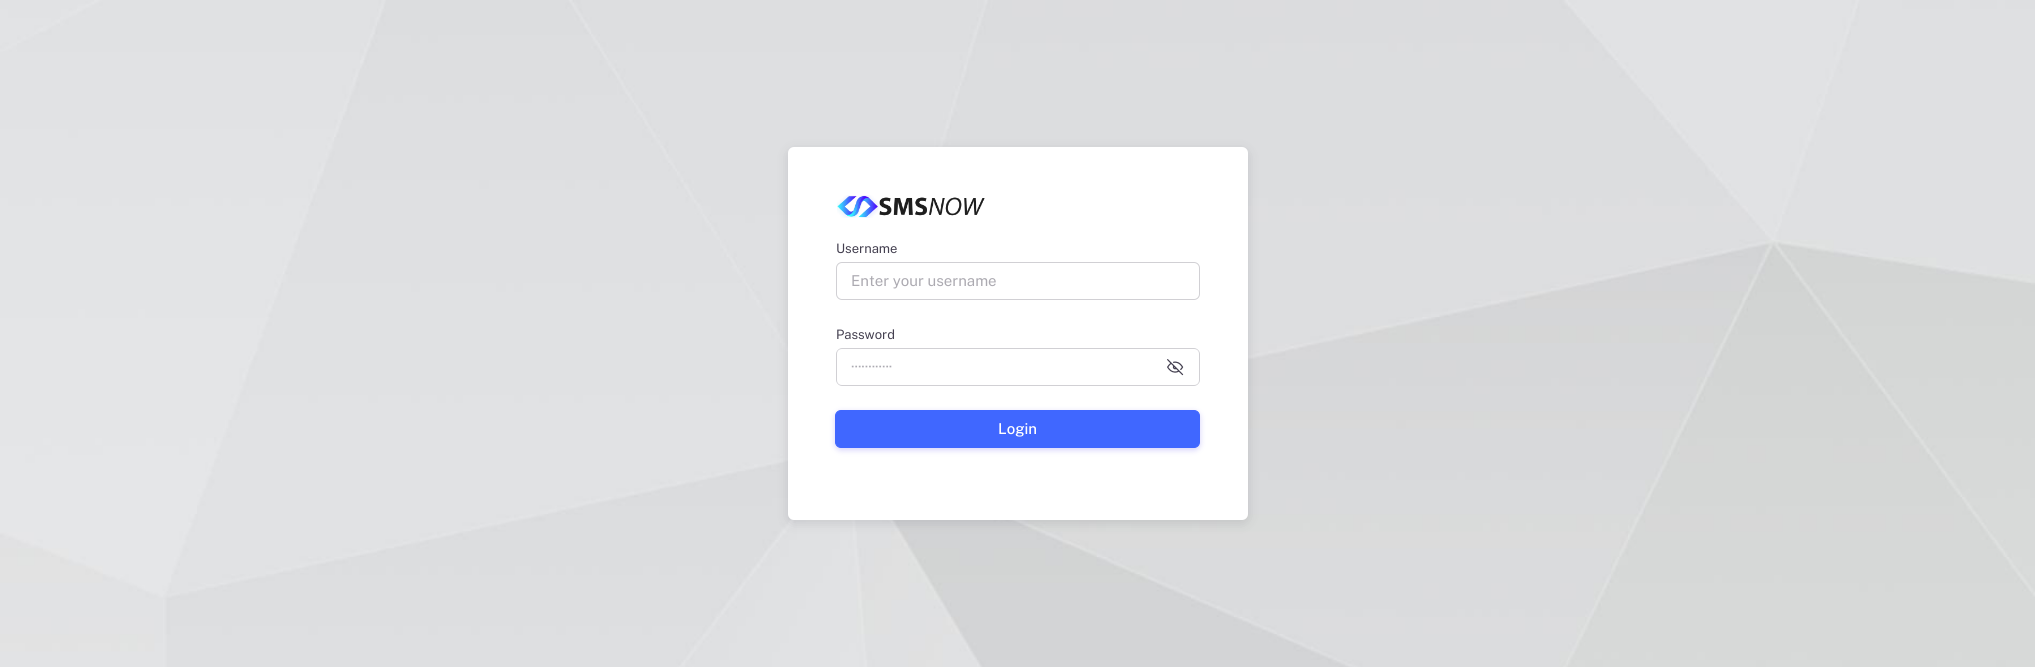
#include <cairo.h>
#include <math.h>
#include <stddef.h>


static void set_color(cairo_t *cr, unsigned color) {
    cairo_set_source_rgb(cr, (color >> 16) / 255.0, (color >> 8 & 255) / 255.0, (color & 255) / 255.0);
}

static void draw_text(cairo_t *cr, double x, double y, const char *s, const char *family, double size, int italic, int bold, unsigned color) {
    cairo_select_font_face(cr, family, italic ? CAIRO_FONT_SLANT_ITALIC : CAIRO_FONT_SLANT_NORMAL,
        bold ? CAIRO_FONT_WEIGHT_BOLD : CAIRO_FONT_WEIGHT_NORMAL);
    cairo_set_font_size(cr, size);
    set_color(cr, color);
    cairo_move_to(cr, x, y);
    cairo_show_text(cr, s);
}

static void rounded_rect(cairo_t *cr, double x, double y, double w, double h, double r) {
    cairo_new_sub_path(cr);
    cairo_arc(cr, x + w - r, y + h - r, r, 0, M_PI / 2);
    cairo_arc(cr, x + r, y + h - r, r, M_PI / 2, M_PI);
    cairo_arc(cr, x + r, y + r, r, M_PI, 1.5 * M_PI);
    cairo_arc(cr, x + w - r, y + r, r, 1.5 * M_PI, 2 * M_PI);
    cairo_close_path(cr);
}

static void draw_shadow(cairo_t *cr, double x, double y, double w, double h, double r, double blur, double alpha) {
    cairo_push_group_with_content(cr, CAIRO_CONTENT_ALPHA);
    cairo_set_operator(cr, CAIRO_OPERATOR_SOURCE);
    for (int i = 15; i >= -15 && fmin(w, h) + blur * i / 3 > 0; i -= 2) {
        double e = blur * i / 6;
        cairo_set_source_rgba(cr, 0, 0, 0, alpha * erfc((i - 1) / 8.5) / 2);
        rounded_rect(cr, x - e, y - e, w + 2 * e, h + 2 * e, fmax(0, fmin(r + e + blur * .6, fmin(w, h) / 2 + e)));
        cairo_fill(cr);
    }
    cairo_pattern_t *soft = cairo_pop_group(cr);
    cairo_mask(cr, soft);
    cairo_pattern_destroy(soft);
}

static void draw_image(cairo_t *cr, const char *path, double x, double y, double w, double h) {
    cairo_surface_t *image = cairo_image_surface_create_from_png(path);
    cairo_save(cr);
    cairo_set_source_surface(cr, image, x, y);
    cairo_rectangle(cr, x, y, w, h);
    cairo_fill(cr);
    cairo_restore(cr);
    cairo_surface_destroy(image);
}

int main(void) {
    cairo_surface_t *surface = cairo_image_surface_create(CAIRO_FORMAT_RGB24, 2035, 667);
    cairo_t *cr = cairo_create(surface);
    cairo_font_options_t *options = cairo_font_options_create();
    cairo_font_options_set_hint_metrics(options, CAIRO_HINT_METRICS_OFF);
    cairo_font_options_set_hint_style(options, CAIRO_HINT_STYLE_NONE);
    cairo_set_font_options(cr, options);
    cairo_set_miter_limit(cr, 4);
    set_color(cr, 0xFFFFFF);
    cairo_paint(cr);
    draw_image(cr, "assets/img1.png", 0, 0, 2035, 667);
    set_color(cr, 0x2F2B3D);
    draw_shadow(cr, 788, 150, 460, 373, 6, 6, 0.14);
    set_color(cr, 0xFFFFFF);
    rounded_rect(cr, 788, 147, 460, 373, 6);
    cairo_fill(cr);
    draw_image(cr, "assets/img2.png", 837, 195, 148, 23);
    draw_text(cr, 836, 253, "Username", "Public Sans", 13, 0, 0, 0x444050);
    rounded_rect(cr, 836.5, 262.5, 363, 37, 5.5);
    set_color(cr, 0xD1D0D4);
    cairo_set_line_width(cr, 1);
    cairo_stroke(cr);
    draw_text(cr, 851, 286, "Enter your username", "Public Sans", 15, 0, 0, 0xACAAB1);
    draw_text(cr, 836, 339, "Password", "Public Sans", 13, 0, 0, 0x444050);
    set_color(cr, 0xD1D0D4);
    cairo_set_fill_rule(cr, CAIRO_FILL_RULE_EVEN_ODD);
    cairo_new_path(cr);
    cairo_move_to(cr, 1151, 348);
    cairo_line_to(cr, 1194, 348);
    cairo_curve_to(cr, 1197, 348, 1200, 351, 1200, 354);
    cairo_line_to(cr, 1200, 380);
    cairo_curve_to(cr, 1200, 383, 1197, 386, 1194, 386);
    cairo_line_to(cr, 1151, 386);
    cairo_close_path(cr);
    cairo_move_to(cr, 1151, 349);
    cairo_line_to(cr, 1194, 349);
    cairo_curve_to(cr, 1197, 349, 1199, 351, 1199, 354);
    cairo_line_to(cr, 1199, 380);
    cairo_curve_to(cr, 1199, 383, 1197, 385, 1194, 385);
    cairo_line_to(cr, 1151, 385);
    cairo_close_path(cr);
    cairo_fill(cr);
    cairo_new_path(cr);
    cairo_move_to(cr, 842, 348);
    cairo_line_to(cr, 1154, 348);
    cairo_line_to(cr, 1154, 386);
    cairo_line_to(cr, 842, 386);
    cairo_curve_to(cr, 839, 386, 836, 383, 836, 380);
    cairo_line_to(cr, 836, 354);
    cairo_curve_to(cr, 836, 351, 839, 348, 842, 348);
    cairo_close_path(cr);
    cairo_move_to(cr, 842, 349);
    cairo_line_to(cr, 1154, 349);
    cairo_line_to(cr, 1154, 385);
    cairo_line_to(cr, 842, 385);
    cairo_curve_to(cr, 839, 385, 837, 383, 837, 380);
    cairo_line_to(cr, 837, 354);
    cairo_curve_to(cr, 837, 351, 839, 349, 842, 349);
    cairo_close_path(cr);
    cairo_fill(cr);
    draw_text(cr, 851, 372, "············", "Public Sans", 15, 0, 0, 0xACAAB1);
    draw_image(cr, "assets/img3.png", 1167, 359, 17, 17);
    set_color(cr, 0x7367F0);
    draw_shadow(cr, 835, 412, 365, 38, 6, 3, 0.3);
    set_color(cr, 0x4067FF);
    rounded_rect(cr, 835.5, 410.5, 364, 37, 5.5);
    cairo_fill_preserve(cr);
    cairo_stroke(cr);
    draw_text(cr, 998, 434, "Login", "Public Sans Medium", 15, 0, 0, 0xFFFFFF);
    cairo_surface_write_to_png(surface, "output.png");
    cairo_font_options_destroy(options);
    cairo_destroy(cr);
    cairo_surface_destroy(surface);
    return 0;
}
